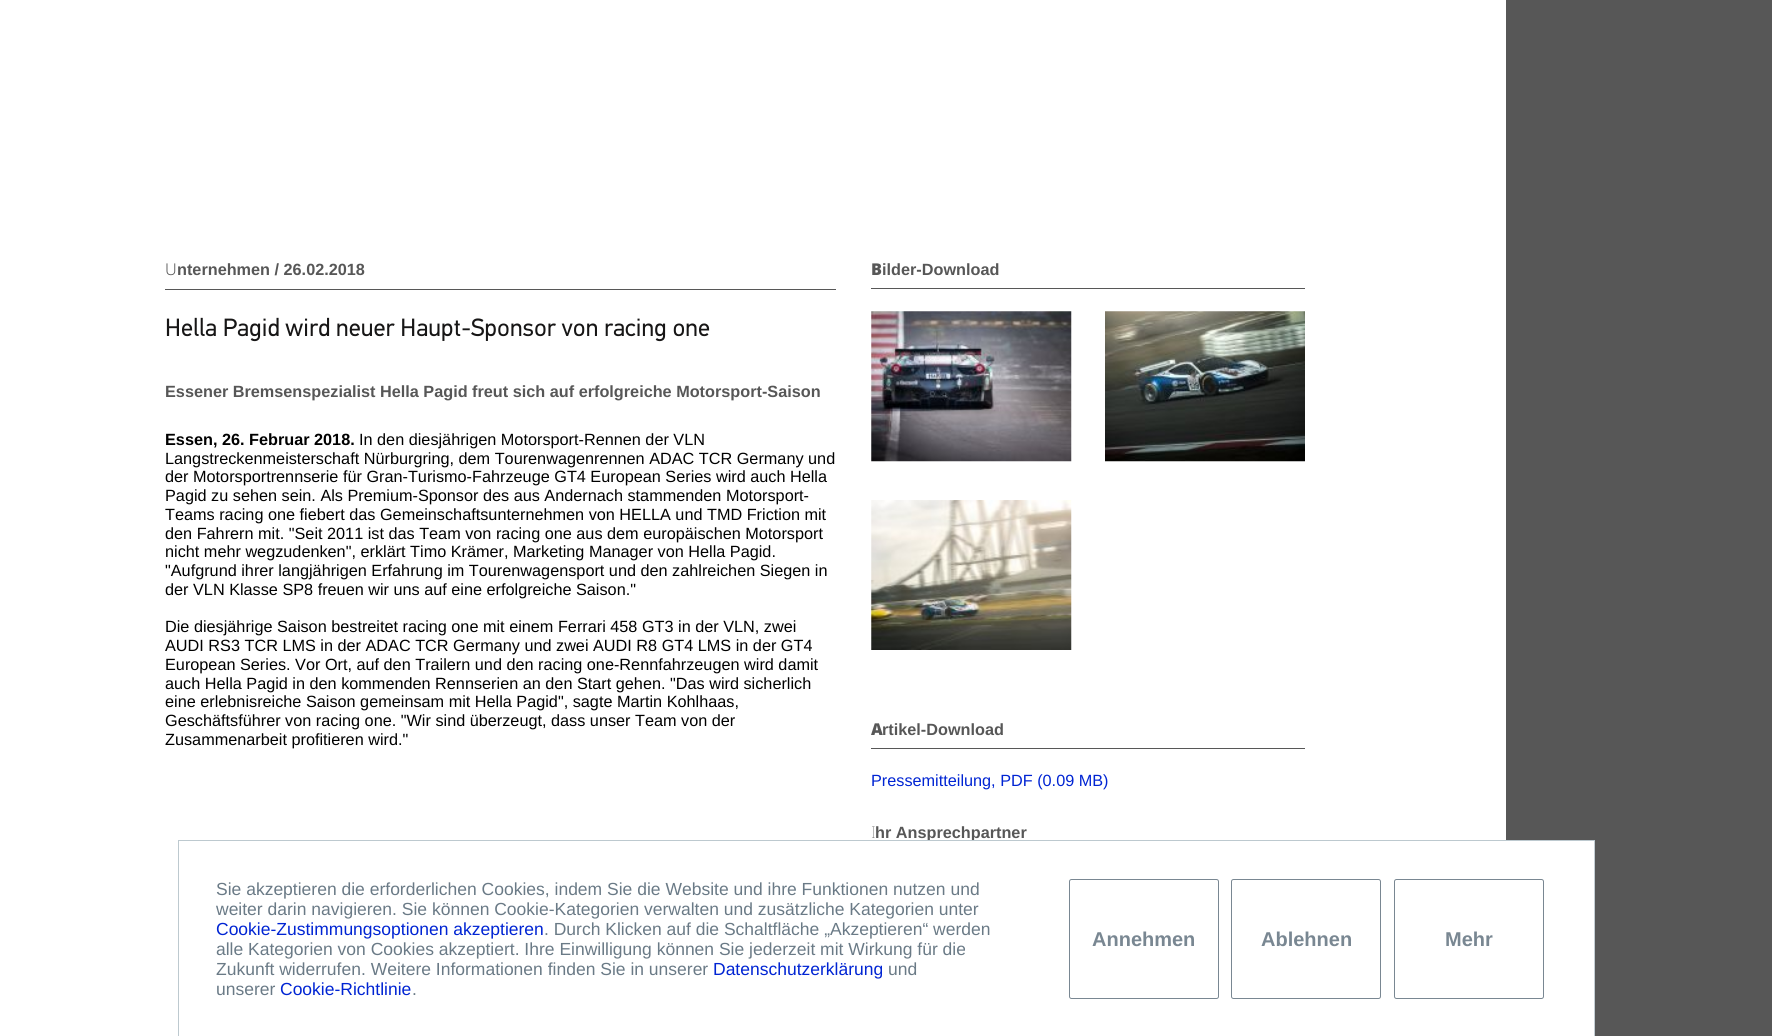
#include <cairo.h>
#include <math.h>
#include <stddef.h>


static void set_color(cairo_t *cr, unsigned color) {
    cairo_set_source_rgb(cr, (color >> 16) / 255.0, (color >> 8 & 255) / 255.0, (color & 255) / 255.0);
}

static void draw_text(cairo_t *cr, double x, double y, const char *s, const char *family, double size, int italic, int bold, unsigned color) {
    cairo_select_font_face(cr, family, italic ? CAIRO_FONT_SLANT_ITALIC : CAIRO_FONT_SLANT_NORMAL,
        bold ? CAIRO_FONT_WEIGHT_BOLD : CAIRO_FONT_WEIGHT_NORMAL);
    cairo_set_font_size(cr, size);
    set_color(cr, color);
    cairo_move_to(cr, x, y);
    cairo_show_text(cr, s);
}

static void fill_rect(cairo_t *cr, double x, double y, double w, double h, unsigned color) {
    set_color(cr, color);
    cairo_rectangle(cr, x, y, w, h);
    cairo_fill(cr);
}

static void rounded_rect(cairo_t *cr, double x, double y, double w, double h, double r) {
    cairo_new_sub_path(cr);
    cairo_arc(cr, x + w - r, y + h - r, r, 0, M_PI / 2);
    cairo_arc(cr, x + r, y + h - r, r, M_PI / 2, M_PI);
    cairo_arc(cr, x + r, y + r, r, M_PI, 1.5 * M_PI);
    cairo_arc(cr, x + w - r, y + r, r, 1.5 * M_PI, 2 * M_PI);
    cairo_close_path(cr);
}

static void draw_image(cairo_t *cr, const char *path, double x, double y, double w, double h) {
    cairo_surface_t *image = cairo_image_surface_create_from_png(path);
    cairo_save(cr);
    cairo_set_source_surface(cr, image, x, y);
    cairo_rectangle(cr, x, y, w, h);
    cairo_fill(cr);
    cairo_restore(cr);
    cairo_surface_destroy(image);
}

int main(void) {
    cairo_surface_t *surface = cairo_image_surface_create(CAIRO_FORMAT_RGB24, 1772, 1036);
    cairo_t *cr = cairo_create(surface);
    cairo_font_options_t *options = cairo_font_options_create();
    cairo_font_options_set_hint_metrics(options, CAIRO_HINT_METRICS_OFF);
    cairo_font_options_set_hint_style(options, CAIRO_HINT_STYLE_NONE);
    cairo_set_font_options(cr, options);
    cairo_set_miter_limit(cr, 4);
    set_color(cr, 0x575757);
    cairo_paint(cr);
    fill_rect(cr, 0, 0, 1506, 1036, 0xFFFFFF);
    fill_rect(cr, 165, 289, 671, 1, 0x575757);
    draw_text(cr, 165, 275, "U", "Noto Sans Light", 16.25, 0, 0, 0x575757);
    draw_text(cr, 177, 275, "nternehmen / 26.02.2018", "Liberation Sans", 16.25, 0, 1, 0x575757);
    draw_text(cr, 165, 336, "Hella Pagid wird neuer Haupt-Sponsor von racing one", "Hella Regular", 25, 0, 0, 0x171616);
    draw_text(cr, 165, 397, "Essener Bremsenspezialist Hella Pagid freut sich auf erfolgreiche Motorsport-Saison", "Liberation Sans", 16.25, 0, 1, 0x575757);
    draw_text(cr, 165, 445, "Essen, 26. Februar 2018.", "Liberation Sans", 16.25, 0, 1, 0x000000);
    draw_text(cr, 359, 445, "In den diesjährigen Motorsport-Rennen der VLN", "Liberation Sans", 16.25, 0, 0, 0x000000);
    draw_text(cr, 165, 464, "Langstreckenmeisterschaft Nürburgring, dem Tourenwagenrennen ADAC TCR Germany und", "Liberation Sans", 16.25, 0, 0, 0x000000);
    draw_text(cr, 165, 482, "der Motorsportrennserie für Gran-Turismo-Fahrzeuge GT4 European Series wird auch Hella", "Liberation Sans", 16.25, 0, 0, 0x000000);
    draw_text(cr, 165, 501, "Pagid zu sehen sein. Als Premium-Sponsor des aus Andernach stammenden Motorsport-", "Liberation Sans", 16.25, 0, 0, 0x000000);
    draw_text(cr, 165, 520, "Teams racing one fiebert das Gemeinschaftsunternehmen von HELLA und TMD Friction mit", "Liberation Sans", 16.25, 0, 0, 0x000000);
    draw_text(cr, 165, 539, "den Fahrern mit. \"Seit 2011 ist das Team von racing one aus dem europäischen Motorsport", "Liberation Sans", 16.25, 0, 0, 0x000000);
    draw_text(cr, 165, 557, "nicht mehr wegzudenken\", erklärt Timo Krämer, Marketing Manager von Hella Pagid.", "Liberation Sans", 16.25, 0, 0, 0x000000);
    draw_text(cr, 165, 576, "\"Aufgrund ihrer langjährigen Erfahrung im Tourenwagensport und den zahlreichen Siegen in", "Liberation Sans", 16.25, 0, 0, 0x000000);
    draw_text(cr, 165, 595, "der VLN Klasse SP8 freuen wir uns auf eine erfolgreiche Saison.\"", "Liberation Sans", 16.25, 0, 0, 0x000000);
    draw_text(cr, 165, 632, "Die diesjährige Saison bestreitet racing one mit einem Ferrari 458 GT3 in der VLN, zwei", "Liberation Sans", 16.25, 0, 0, 0x000000);
    draw_text(cr, 165, 651, "AUDI RS3 TCR LMS in der ADAC TCR Germany und zwei AUDI R8 GT4 LMS in der GT4", "Liberation Sans", 16.25, 0, 0, 0x000000);
    draw_text(cr, 165, 670, "European Series. Vor Ort, auf den Trailern und den racing one-Rennfahrzeugen wird damit", "Liberation Sans", 16.25, 0, 0, 0x000000);
    draw_text(cr, 165, 689, "auch Hella Pagid in den kommenden Rennserien an den Start gehen. \"Das wird sicherlich", "Liberation Sans", 16.25, 0, 0, 0x000000);
    draw_text(cr, 165, 707, "eine erlebnisreiche Saison gemeinsam mit Hella Pagid\", sagte Martin Kohlhaas,", "Liberation Sans", 16.25, 0, 0, 0x000000);
    draw_text(cr, 165, 726, "Geschäftsführer von racing one. \"Wir sind überzeugt, dass unser Team von der", "Liberation Sans", 16.25, 0, 0, 0x000000);
    draw_text(cr, 165, 745, "Zusammenarbeit profitieren wird.\"", "Liberation Sans", 16.25, 0, 0, 0x000000);
    fill_rect(cr, 871, 288, 434, 1, 0x575757);
    draw_text(cr, 871, 275, "B", "Noto Sans Black", 16.25, 0, 0, 0x575757);
    draw_text(cr, 882, 275, "ilder-Download", "Liberation Sans", 16.25, 0, 1, 0x575757);
    draw_image(cr, "assets/img1.png", 871, 311, 201, 151);
    draw_image(cr, "assets/img2.png", 1105, 311, 200, 151);
    draw_image(cr, "assets/img3.png", 871, 500, 201, 150);
    fill_rect(cr, 871, 748, 434, 1, 0x575757);
    draw_text(cr, 871, 735, "A", "Noto Sans Black", 16.25, 0, 0, 0x575757);
    draw_text(cr, 882, 735, "rtikel-Download", "Liberation Sans", 16.25, 0, 1, 0x575757);
    draw_text(cr, 871, 786, "Pressemitteilung, PDF (0.09 MB)", "Liberation Sans", 16.25, 0, 0, 0x0024D3);
    draw_text(cr, 871, 838, "I", "Noto Sans Thin", 16.25, 0, 0, 0x575757);
    draw_text(cr, 875, 838, "hr Ansprechpartner", "Liberation Sans", 16.25, 0, 1, 0x575757);
    fill_rect(cr, 927, 841, 667, 195, 0xFFFFFF);
    fill_rect(cr, 178, 840, 1417, 1, 0xBDC9CF);
    fill_rect(cr, 178, 841, 1, 195, 0xBDC9CF);
    draw_text(cr, 216, 895, "Sie akzeptieren die erforderlichen Cookies, indem Sie die Website und ihre Funktionen nutzen und", "Liberation Sans", 17.5, 0, 0, 0x6A7A86);
    draw_text(cr, 216, 915, "weiter darin navigieren. Sie können Cookie-Kategorien verwalten und zusätzliche Kategorien unter", "Liberation Sans", 17.5, 0, 0, 0x6A7A86);
    draw_text(cr, 216, 935, "Cookie-Zustimmungsoptionen akzeptieren", "Liberation Sans", 17.5, 0, 0, 0x0024D3);
    draw_text(cr, 544, 935, ". Durch Klicken auf die Schaltfläche „Akzeptieren“ werden", "Liberation Sans", 17.5, 0, 0, 0x6A7A86);
    draw_text(cr, 216, 955, "alle Kategorien von Cookies akzeptiert. Ihre Einwilligung können Sie jederzeit mit Wirkung für die", "Liberation Sans", 17.5, 0, 0, 0x6A7A86);
    draw_text(cr, 216, 975, "Zukunft widerrufen. Weitere Informationen finden Sie in unserer", "Liberation Sans", 17.5, 0, 0, 0x6A7A86);
    draw_text(cr, 713, 975, "Datenschutzerklärung", "Liberation Sans", 17.5, 0, 0, 0x0024D3);
    draw_text(cr, 888, 975, "und", "Liberation Sans", 17.5, 0, 0, 0x6A7A86);
    draw_text(cr, 216, 995, "unserer", "Liberation Sans", 17.5, 0, 0, 0x6A7A86);
    draw_text(cr, 280, 995, "Cookie-Richtlinie", "Liberation Sans", 17.5, 0, 0, 0x0024D3);
    draw_text(cr, 412, 995, ".", "Liberation Sans", 17.5, 0, 0, 0x6A7A86);
    fill_rect(cr, 1594, 841, 1, 195, 0xC4CED4);
    rounded_rect(cr, 1069.5, 879.5, 149, 119, 2);
    set_color(cr, 0x798792);
    cairo_set_line_width(cr, 1);
    cairo_stroke(cr);
    draw_text(cr, 1092, 946, "Annehmen", "Liberation Sans", 20, 0, 1, 0x798792);
    rounded_rect(cr, 1231.5, 879.5, 149, 119, 2);
    cairo_stroke(cr);
    draw_text(cr, 1261, 946, "Ablehnen", "Liberation Sans", 20, 0, 1, 0x798792);
    rounded_rect(cr, 1394.5, 879.5, 149, 119, 2);
    cairo_stroke(cr);
    draw_text(cr, 1445, 946, "Mehr", "Liberation Sans", 20, 0, 1, 0x798792);
    cairo_surface_write_to_png(surface, "output.png");
    cairo_font_options_destroy(options);
    cairo_destroy(cr);
    cairo_surface_destroy(surface);
    return 0;
}
